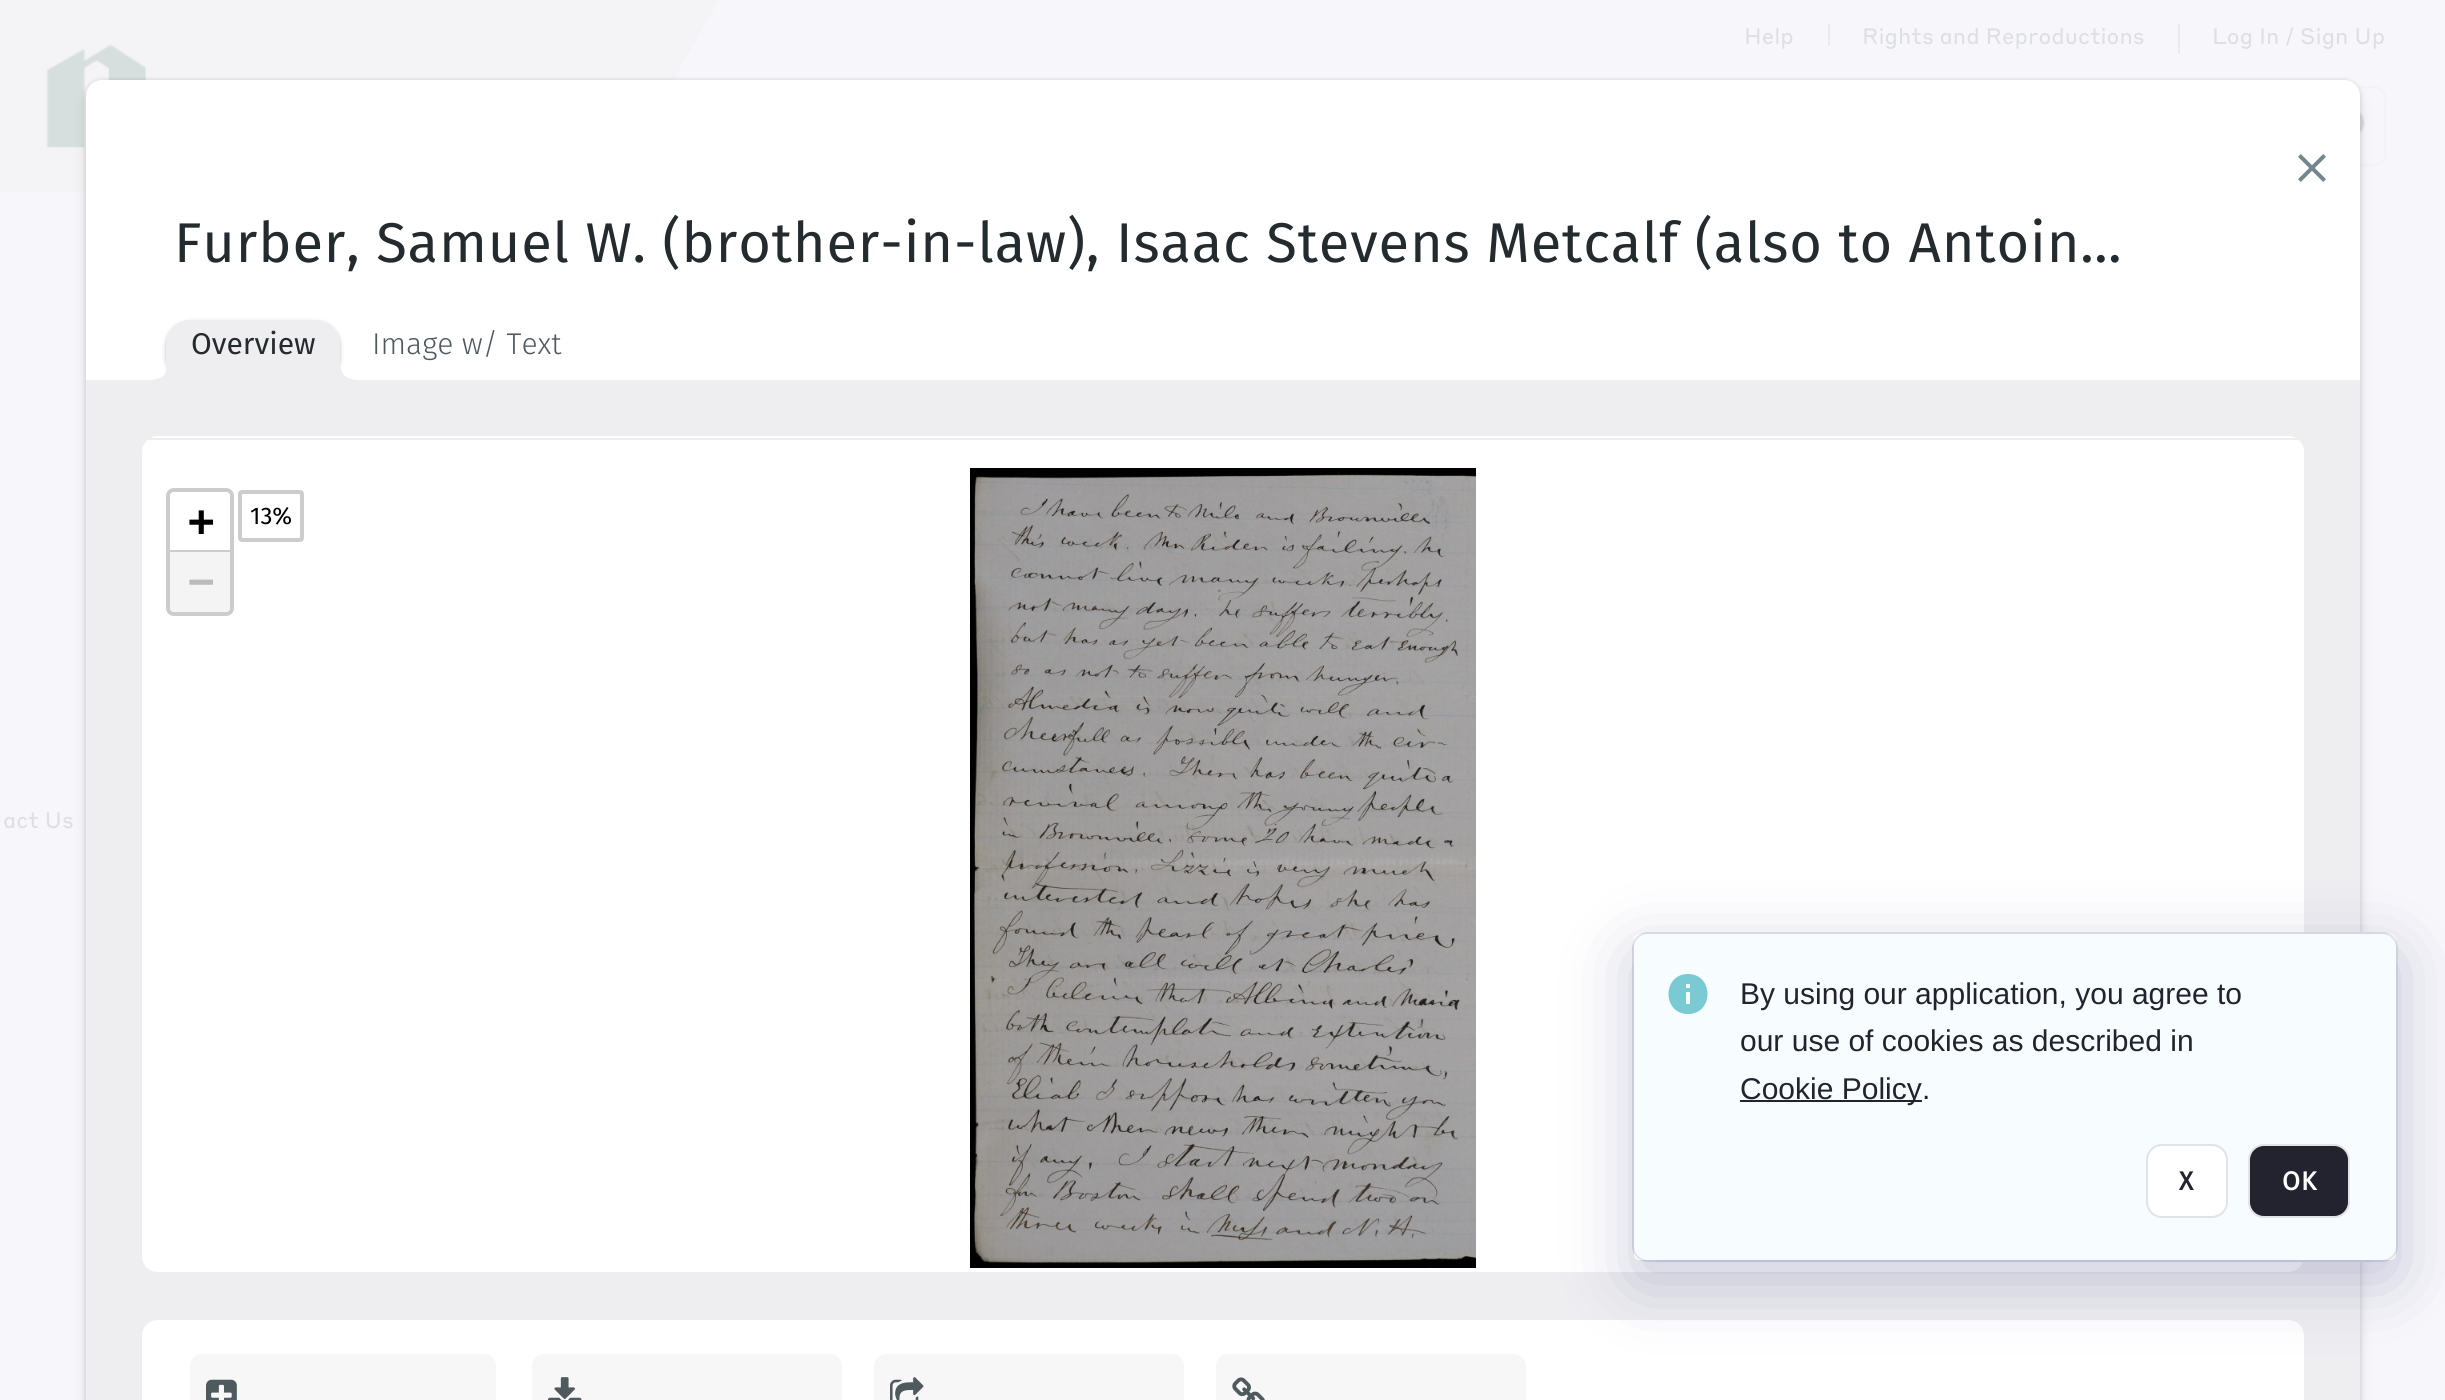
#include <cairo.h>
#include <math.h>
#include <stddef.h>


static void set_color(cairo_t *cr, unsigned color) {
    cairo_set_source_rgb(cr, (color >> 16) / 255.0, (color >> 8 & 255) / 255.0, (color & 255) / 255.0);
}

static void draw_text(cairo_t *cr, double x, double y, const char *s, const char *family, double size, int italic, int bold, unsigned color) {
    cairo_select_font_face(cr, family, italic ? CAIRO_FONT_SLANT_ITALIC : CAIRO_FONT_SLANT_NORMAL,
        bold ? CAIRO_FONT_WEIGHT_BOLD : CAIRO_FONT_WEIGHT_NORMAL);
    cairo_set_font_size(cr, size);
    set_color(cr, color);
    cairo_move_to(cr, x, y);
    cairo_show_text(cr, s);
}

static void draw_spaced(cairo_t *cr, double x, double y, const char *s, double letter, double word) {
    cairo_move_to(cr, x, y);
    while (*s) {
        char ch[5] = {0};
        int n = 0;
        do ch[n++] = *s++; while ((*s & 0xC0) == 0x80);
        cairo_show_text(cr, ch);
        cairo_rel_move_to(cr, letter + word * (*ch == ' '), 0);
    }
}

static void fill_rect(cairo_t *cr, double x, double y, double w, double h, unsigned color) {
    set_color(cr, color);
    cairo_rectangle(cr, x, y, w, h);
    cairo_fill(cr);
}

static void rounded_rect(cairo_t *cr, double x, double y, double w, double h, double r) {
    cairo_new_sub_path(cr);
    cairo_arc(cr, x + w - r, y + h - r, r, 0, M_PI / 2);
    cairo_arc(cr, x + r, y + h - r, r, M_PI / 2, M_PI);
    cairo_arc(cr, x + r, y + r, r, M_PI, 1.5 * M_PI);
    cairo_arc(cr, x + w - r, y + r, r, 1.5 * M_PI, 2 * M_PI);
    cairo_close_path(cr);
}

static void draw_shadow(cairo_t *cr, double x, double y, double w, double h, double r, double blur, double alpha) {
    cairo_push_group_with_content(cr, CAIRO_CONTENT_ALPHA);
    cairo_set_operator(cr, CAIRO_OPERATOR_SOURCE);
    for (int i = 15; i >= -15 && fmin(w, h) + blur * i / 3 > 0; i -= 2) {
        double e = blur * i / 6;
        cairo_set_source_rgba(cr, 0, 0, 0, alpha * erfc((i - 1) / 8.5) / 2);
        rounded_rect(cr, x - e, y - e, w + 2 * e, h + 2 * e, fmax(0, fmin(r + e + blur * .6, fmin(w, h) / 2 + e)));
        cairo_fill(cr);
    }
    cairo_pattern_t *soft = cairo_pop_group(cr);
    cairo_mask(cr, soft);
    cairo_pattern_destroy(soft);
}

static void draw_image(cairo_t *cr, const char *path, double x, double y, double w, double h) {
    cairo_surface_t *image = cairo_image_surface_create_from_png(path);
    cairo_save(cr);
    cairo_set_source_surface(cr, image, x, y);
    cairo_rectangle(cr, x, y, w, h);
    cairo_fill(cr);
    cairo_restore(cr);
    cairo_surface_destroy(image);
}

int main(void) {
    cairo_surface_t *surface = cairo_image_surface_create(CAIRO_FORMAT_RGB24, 2445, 1400);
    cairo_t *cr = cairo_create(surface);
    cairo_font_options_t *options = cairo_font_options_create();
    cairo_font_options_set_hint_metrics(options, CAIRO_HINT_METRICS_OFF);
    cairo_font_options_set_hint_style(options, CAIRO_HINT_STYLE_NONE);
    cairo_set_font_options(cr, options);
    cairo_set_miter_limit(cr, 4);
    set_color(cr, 0xF7F7FB);
    cairo_paint(cr);
    draw_image(cr, "assets/img1.png", 0, 0, 719, 192);
    draw_text(cr, 1744, 44, "Help", "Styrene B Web", 22, 0, 0, 0xDDDFE3);
    fill_rect(cr, 1828, 24, 2, 22, 0xEBEBEE);
    draw_text(cr, 1862, 44, "Rights and Reproductions", "Styrene B Web", 22, 0, 0, 0xDDDFE3);
    fill_rect(cr, 2178, 24, 2, 30, 0xEBEBEE);
    draw_text(cr, 2212, 44, "Log In / Sign Up", "Styrene B Web", 22, 0, 0, 0xDDDFE3);
    rounded_rect(cr, 1587, 87, 798, 78, 11);
    set_color(cr, 0xF3F3F7);
    cairo_stroke(cr);
    draw_image(cr, "assets/img2.png", 2360, 111, 5, 24);
    draw_text(cr, 3, 828, "act Us", "Styrene B Web", 22, 0, 0, 0xDDDFE3);
    set_color(cr, 0x000000);
    draw_shadow(cr, 86, 80, 2274, 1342, 16, 2, 0.06);
    draw_shadow(cr, 86, 80, 2274, 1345, 16, 3, 0.08);
    draw_shadow(cr, 86, 90, 2274, 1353, 16, 9, 0.06);
    draw_shadow(cr, 86, 86, 2274, 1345, 16, 5, 0.06);
    set_color(cr, 0xFFFFFF);
    cairo_new_path(cr);
    cairo_move_to(cr, 102, 80);
    cairo_line_to(cr, 2344, 80);
    cairo_curve_to(cr, 2353, 80, 2360, 87, 2360, 96);
    cairo_line_to(cr, 2360, 1400);
    cairo_line_to(cr, 86, 1400);
    cairo_line_to(cr, 86, 96);
    cairo_curve_to(cr, 86, 87, 93, 80, 102, 80);
    cairo_close_path(cr);
    cairo_fill(cr);
    draw_image(cr, "assets/img3.png", 2298, 154, 28, 28);
    cairo_select_font_face(cr, "Fira Sans", CAIRO_FONT_SLANT_NORMAL, CAIRO_FONT_WEIGHT_NORMAL);
    cairo_set_font_size(cr, 56);
    set_color(cr, 0x242B2E);
    draw_spaced(cr, 174, 262, "Furber, Samuel W. (brother-in-law), Isaac Stevens Metcalf (also to Antoin…", 0.85, 0);
    set_color(cr, 0x6F6F9D);
    draw_shadow(cr, 166, 322, 174, 60, 24, 2, 0.5);
    set_color(cr, 0xEEEEF1);
    cairo_new_path(cr);
    cairo_move_to(cr, 190, 320);
    cairo_line_to(cr, 316, 320);
    cairo_curve_to(cr, 329.5, 320, 340, 330.5, 340, 344);
    cairo_line_to(cr, 340, 380);
    cairo_line_to(cr, 166, 380);
    cairo_line_to(cr, 166, 344);
    cairo_curve_to(cr, 166, 330.5, 176.5, 320, 190, 320);
    cairo_close_path(cr);
    cairo_fill(cr);
    cairo_new_path(cr);
    cairo_move_to(cr, 167, 368.5);
    cairo_line_to(cr, 165.5, 373);
    cairo_line_to(cr, 163.5, 375.5);
    cairo_line_to(cr, 160, 378);
    cairo_line_to(cr, 152, 380);
    cairo_line_to(cr, 168, 380);
    cairo_line_to(cr, 168, 364);
    cairo_close_path(cr);
    cairo_fill(cr);
    cairo_new_path(cr);
    cairo_move_to(cr, 340, 364);
    cairo_line_to(cr, 341, 368.5);
    cairo_line_to(cr, 342.5, 373);
    cairo_line_to(cr, 344.5, 375.5);
    cairo_line_to(cr, 348, 378);
    cairo_line_to(cr, 356, 380);
    cairo_line_to(cr, 340, 380);
    cairo_close_path(cr);
    cairo_fill(cr);
    draw_text(cr, 191, 354, "Overview", "Fira Sans", 30, 0, 0, 0x242B2E);
    draw_text(cr, 372, 354, "Image w/ Text", "Fira Sans Light", 30, 0, 0, 0x4F5A5F);
    fill_rect(cr, 86, 380, 2274, 1020, 0xEEEEF1);
    set_color(cr, 0xFFFFFF);
    rounded_rect(cr, 142, 436, 2162, 836, 16);
    cairo_fill(cr);
    fill_rect(cr, 142, 438, 2162, 2, 0xEEEEF1);
    fill_rect(cr, 146, 1267, 2154, 1, 0xFFFFFF);
    rounded_rect(cr, 168, 490, 64, 124, 6);
    set_color(cr, 0xCCCCCC);
    cairo_set_line_width(cr, 4);
    cairo_stroke(cr);
    set_color(cr, 0xFFFFFF);
    cairo_new_path(cr);
    cairo_move_to(cr, 174, 492);
    cairo_line_to(cr, 226, 492);
    cairo_curve_to(cr, 228, 492, 230, 494, 230, 496);
    cairo_line_to(cr, 230, 552);
    cairo_line_to(cr, 170, 552);
    cairo_line_to(cr, 170, 496);
    cairo_curve_to(cr, 170, 494, 172, 492, 174, 492);
    cairo_close_path(cr);
    cairo_fill(cr);
    fill_rect(cr, 170, 550, 60, 2, 0xCCCCCC);
    draw_text(cr, 188, 536, "+", "DejaVu Sans Mono", 44, 0, 1, 0x000000);
    set_color(cr, 0xF4F4F4);
    cairo_new_path(cr);
    cairo_move_to(cr, 170, 552);
    cairo_line_to(cr, 230, 552);
    cairo_line_to(cr, 230, 608);
    cairo_curve_to(cr, 230, 610, 228, 612, 226, 612);
    cairo_line_to(cr, 174, 612);
    cairo_curve_to(cr, 172, 612, 170, 610, 170, 608);
    cairo_close_path(cr);
    cairo_fill(cr);
    draw_text(cr, 188, 596, "−", "DejaVu Sans Mono", 44, 0, 1, 0xBBBBBB);
    draw_image(cr, "assets/img4.png", 970, 468, 506, 800);
    rounded_rect(cr, 240, 492, 62, 48, 2);
    set_color(cr, 0xCCCCCC);
    cairo_stroke(cr);
    draw_text(cr, 250, 524, "13%", "Fira Sans", 24, 0, 0, 0x000000);
    set_color(cr, 0xFFFFFF);
    cairo_new_path(cr);
    cairo_move_to(cr, 158, 1320);
    cairo_line_to(cr, 2288, 1320);
    cairo_curve_to(cr, 2297, 1320, 2304, 1327, 2304, 1336);
    cairo_line_to(cr, 2304, 1400);
    cairo_line_to(cr, 142, 1400);
    cairo_line_to(cr, 142, 1336);
    cairo_curve_to(cr, 142, 1327, 149, 1320, 158, 1320);
    cairo_close_path(cr);
    cairo_fill(cr);
    set_color(cr, 0xF7F7F8);
    cairo_new_path(cr);
    cairo_move_to(cr, 202, 1354);
    cairo_line_to(cr, 484, 1354);
    cairo_curve_to(cr, 490.5, 1354, 496, 1359.5, 496, 1366);
    cairo_line_to(cr, 496, 1400);
    cairo_line_to(cr, 190, 1400);
    cairo_line_to(cr, 190, 1366);
    cairo_curve_to(cr, 190, 1359.5, 195.5, 1354, 202, 1354);
    cairo_close_path(cr);
    cairo_fill(cr);
    draw_image(cr, "assets/img5.png", 206, 1379, 31, 21);
    cairo_new_path(cr);
    cairo_move_to(cr, 544, 1354);
    cairo_line_to(cr, 830, 1354);
    cairo_curve_to(cr, 836.5, 1354, 842, 1359.5, 842, 1366);
    cairo_line_to(cr, 842, 1400);
    cairo_line_to(cr, 532, 1400);
    cairo_line_to(cr, 532, 1366);
    cairo_curve_to(cr, 532, 1359.5, 537.5, 1354, 544, 1354);
    cairo_close_path(cr);
    cairo_fill(cr);
    draw_image(cr, "assets/img6.png", 548, 1377, 34, 23);
    cairo_new_path(cr);
    cairo_move_to(cr, 886, 1354);
    cairo_line_to(cr, 1172, 1354);
    cairo_curve_to(cr, 1178.5, 1354, 1184, 1359.5, 1184, 1366);
    cairo_line_to(cr, 1184, 1400);
    cairo_line_to(cr, 874, 1400);
    cairo_line_to(cr, 874, 1366);
    cairo_curve_to(cr, 874, 1359.5, 879.5, 1354, 886, 1354);
    cairo_close_path(cr);
    cairo_fill(cr);
    draw_image(cr, "assets/img7.png", 890, 1377, 34, 23);
    cairo_new_path(cr);
    cairo_move_to(cr, 1228, 1354);
    cairo_line_to(cr, 1514, 1354);
    cairo_curve_to(cr, 1520.5, 1354, 1526, 1359.5, 1526, 1366);
    cairo_line_to(cr, 1526, 1400);
    cairo_line_to(cr, 1216, 1400);
    cairo_line_to(cr, 1216, 1366);
    cairo_curve_to(cr, 1216, 1359.5, 1221.5, 1354, 1228, 1354);
    cairo_close_path(cr);
    cairo_fill(cr);
    draw_image(cr, "assets/img8.png", 1232, 1377, 33, 23);
    set_color(cr, 0xF7FDFE);
    rounded_rect(cr, 1633, 933, 764, 328, 15);
    cairo_fill_preserve(cr);
    set_color(cr, 0xE2E2E9);
    cairo_set_line_width(cr, 2);
    cairo_stroke(cr);
    cairo_save(cr);
    cairo_set_fill_rule(cr, CAIRO_FILL_RULE_EVEN_ODD);
    cairo_new_path(cr);
    cairo_move_to(cr, 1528, 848);
    cairo_line_to(cr, 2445, 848);
    cairo_line_to(cr, 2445, 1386);
    cairo_line_to(cr, 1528, 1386);
    cairo_close_path(cr);
    cairo_move_to(cr, 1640, 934);
    cairo_line_to(cr, 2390, 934);
    cairo_curve_to(cr, 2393.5, 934, 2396, 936.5, 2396, 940);
    cairo_line_to(cr, 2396, 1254);
    cairo_curve_to(cr, 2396, 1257.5, 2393.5, 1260, 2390, 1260);
    cairo_line_to(cr, 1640, 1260);
    cairo_curve_to(cr, 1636.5, 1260, 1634, 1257.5, 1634, 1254);
    cairo_line_to(cr, 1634, 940);
    cairo_curve_to(cr, 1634, 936.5, 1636.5, 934, 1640, 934);
    cairo_close_path(cr);
    cairo_clip(cr);
    set_color(cr, 0x4D4D87);
    draw_shadow(cr, 1634, 954, 762, 326, 6, 35, 0.3);
    cairo_restore(cr);
    set_color(cr, 0x7ACAD3);
    cairo_new_path(cr);
    cairo_move_to(cr, 1688, 974);
    cairo_curve_to(cr, 1662, 974, 1662, 1014, 1688, 1014);
    cairo_curve_to(cr, 1714, 1014, 1714, 974, 1688, 974);
    cairo_close_path(cr);
    cairo_move_to(cr, 1690, 1004);
    cairo_line_to(cr, 1686, 1004);
    cairo_line_to(cr, 1686, 992);
    cairo_line_to(cr, 1690, 992);
    cairo_close_path(cr);
    cairo_move_to(cr, 1690, 988);
    cairo_line_to(cr, 1686, 988);
    cairo_line_to(cr, 1686, 984);
    cairo_line_to(cr, 1690, 984);
    cairo_close_path(cr);
    cairo_fill(cr);
    draw_text(cr, 1740, 1004, "By using our application, you agree to", "Liberation Sans", 30, 0, 0, 0x23232F);
    draw_text(cr, 1740, 1051, "our use of cookies as described in", "Liberation Sans", 30, 0, 0, 0x23232F);
    fill_rect(cr, 1740, 1100, 182, 2, 0x23232F);
    draw_text(cr, 1740, 1099, "Cookie Policy", "Liberation Sans", 30, 0, 0, 0x23232F);
    draw_text(cr, 1922, 1099, ".", "Liberation Sans", 30, 0, 0, 0x23232F);
    set_color(cr, 0xFFFFFF);
    rounded_rect(cr, 2147, 1145, 80, 72, 15);
    cairo_fill_preserve(cr);
    set_color(cr, 0xE2E2E9);
    cairo_stroke(cr);
    cairo_select_font_face(cr, "Fira Sans", CAIRO_FONT_SLANT_NORMAL, CAIRO_FONT_WEIGHT_BOLD);
    cairo_set_font_size(cr, 26);
    set_color(cr, 0x23232F);
    draw_spaced(cr, 2179, 1190, "X", 1, 0);
    rounded_rect(cr, 2249, 1145, 100, 72, 15);
    cairo_fill_preserve(cr);
    set_color(cr, 0xE2E2E9);
    cairo_stroke(cr);
    set_color(cr, 0xFFFFFF);
    draw_spaced(cr, 2282, 1190, "OK", 1, 0);
    cairo_surface_write_to_png(surface, "output.png");
    cairo_font_options_destroy(options);
    cairo_destroy(cr);
    cairo_surface_destroy(surface);
    return 0;
}
